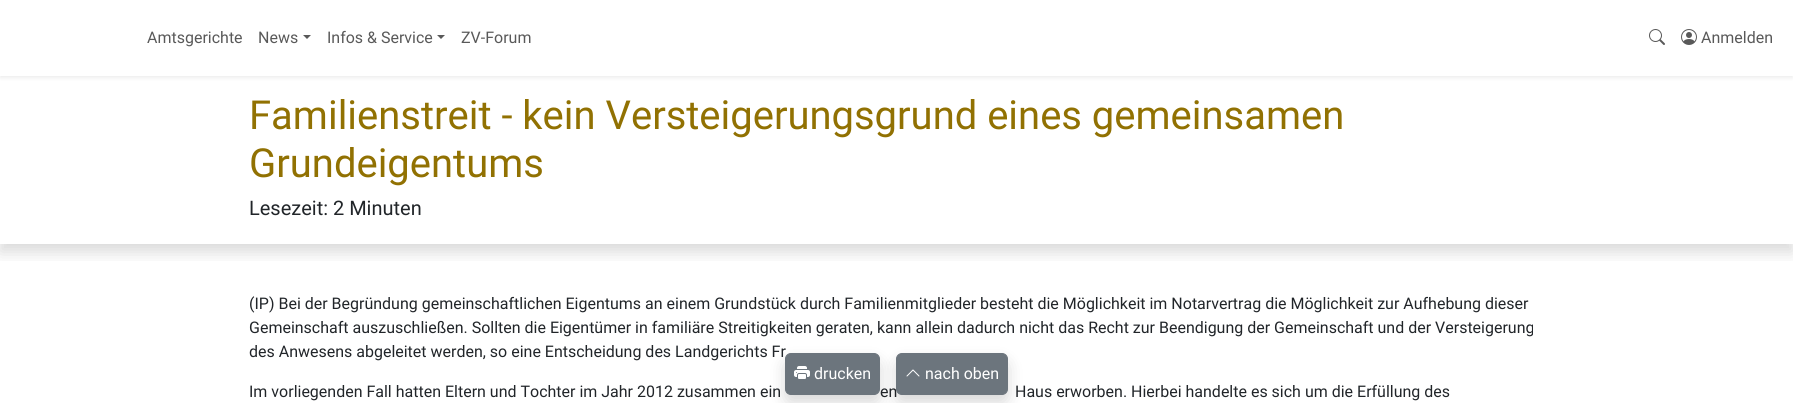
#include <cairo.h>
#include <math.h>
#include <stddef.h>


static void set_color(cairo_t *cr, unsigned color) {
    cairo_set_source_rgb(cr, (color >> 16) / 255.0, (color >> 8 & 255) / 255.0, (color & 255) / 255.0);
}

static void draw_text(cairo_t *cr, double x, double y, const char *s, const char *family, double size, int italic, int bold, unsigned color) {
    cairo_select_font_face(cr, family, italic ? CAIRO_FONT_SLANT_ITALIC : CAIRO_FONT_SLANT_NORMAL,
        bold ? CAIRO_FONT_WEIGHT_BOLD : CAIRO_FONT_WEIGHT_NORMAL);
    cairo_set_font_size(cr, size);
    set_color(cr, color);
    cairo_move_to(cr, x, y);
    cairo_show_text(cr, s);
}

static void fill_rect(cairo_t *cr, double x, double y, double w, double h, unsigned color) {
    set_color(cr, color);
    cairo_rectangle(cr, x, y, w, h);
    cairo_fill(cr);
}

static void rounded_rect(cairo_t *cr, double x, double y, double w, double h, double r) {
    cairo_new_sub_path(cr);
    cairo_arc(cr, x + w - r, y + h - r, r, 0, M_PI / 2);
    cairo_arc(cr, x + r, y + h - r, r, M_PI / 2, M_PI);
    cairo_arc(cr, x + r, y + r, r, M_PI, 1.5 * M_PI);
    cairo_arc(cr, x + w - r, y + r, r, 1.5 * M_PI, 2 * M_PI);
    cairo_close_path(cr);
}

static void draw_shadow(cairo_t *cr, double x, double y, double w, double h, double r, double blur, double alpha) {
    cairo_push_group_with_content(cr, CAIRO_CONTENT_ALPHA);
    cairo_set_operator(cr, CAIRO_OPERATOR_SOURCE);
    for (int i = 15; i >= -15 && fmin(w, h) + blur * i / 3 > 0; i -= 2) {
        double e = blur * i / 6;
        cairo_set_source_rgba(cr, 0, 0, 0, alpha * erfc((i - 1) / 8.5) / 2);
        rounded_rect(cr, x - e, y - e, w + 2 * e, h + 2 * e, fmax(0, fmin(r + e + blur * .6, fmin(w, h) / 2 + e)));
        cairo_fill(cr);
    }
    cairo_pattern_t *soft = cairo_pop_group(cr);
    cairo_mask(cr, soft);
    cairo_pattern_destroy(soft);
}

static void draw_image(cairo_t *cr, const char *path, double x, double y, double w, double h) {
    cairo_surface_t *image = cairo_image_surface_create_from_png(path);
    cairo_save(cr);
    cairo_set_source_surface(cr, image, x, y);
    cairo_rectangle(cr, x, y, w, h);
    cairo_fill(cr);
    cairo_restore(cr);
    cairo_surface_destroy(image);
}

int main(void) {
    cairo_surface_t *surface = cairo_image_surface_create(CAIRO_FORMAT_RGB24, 1793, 403);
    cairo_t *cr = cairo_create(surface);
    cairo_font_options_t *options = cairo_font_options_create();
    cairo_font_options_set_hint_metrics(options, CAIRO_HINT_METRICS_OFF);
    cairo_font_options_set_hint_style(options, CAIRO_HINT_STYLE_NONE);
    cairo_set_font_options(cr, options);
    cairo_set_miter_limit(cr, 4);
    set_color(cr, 0xFFFFFF);
    cairo_paint(cr);
    set_color(cr, 0x000000);
    draw_shadow(cr, 0, 2, 1793, 76, 0, 2, 0.07);
    cairo_save(cr);
    cairo_rectangle(cr, 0, 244, 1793, 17);
    cairo_clip(cr);
    draw_shadow(cr, 0, 84, 1793, 168, 0, 8, 0.15);
    cairo_restore(cr);
    fill_rect(cr, 0, 0, 1793, 76, 0xFFFFFF);
    draw_text(cr, 147, 43, "Amtsgerichte", "Roboto", 16, 0, 0, 0x595959);
    draw_text(cr, 258, 43, "News", "Roboto", 16, 0, 0, 0x595959);
    cairo_new_path(cr);
    cairo_move_to(cr, 303, 35);
    cairo_line_to(cr, 311, 35);
    cairo_line_to(cr, 307, 39);
    cairo_close_path(cr);
    cairo_fill(cr);
    draw_text(cr, 327, 43, "Infos & Service", "Roboto", 16, 0, 0, 0x595959);
    cairo_new_path(cr);
    cairo_move_to(cr, 437, 35);
    cairo_line_to(cr, 445, 35);
    cairo_line_to(cr, 441, 39);
    cairo_close_path(cr);
    cairo_fill(cr);
    draw_text(cr, 461, 43, "ZV-Forum", "Roboto", 16, 0, 0, 0x595959);
    draw_image(cr, "assets/img1.png", 1649, 29, 16, 16);
    draw_image(cr, "assets/img2.png", 1681, 29, 16, 16);
    draw_text(cr, 1701, 43, "Anmelden", "Roboto", 16, 0, 0, 0x595959);
    draw_text(cr, 249, 129, "Familienstreit - kein Versteigerungsgrund eines gemeinsamen", "Roboto", 40, 0, 0, 0x917102);
    draw_text(cr, 249, 177, "Grundeigentums", "Roboto", 40, 0, 0, 0x917102);
    draw_text(cr, 249, 215, "Lesezeit: 2 Minuten", "Roboto", 20, 0, 0, 0x212529);
    draw_text(cr, 249, 309, "(IP) Bei der Begründung gemeinschaftlichen Eigentums an einem Grundstück durch Familienmitglieder besteht die Möglichkeit im Notarvertrag die Möglichkeit zur Aufhebung dieser", "Roboto", 16, 0, 0, 0x212529);
    draw_text(cr, 249, 333, "Gemeinschaft auszuschließen. Sollten die Eigentümer in familiäre Streitigkeiten geraten, kann allein dadurch nicht das Recht zur Beendigung der Gemeinschaft und der Versteigerung", "Roboto", 16, 0, 0, 0x212529);
    draw_text(cr, 249, 357, "des Anwesens abgeleitet werden, so eine Entscheidung des Landgerichts Fr", "Roboto", 16, 0, 0, 0x212529);
    draw_text(cr, 249, 397, "Im vorliegenden Fall hatten Eltern und Tochter im Jahr 2012 zusammen ein", "Roboto", 16, 0, 0, 0x212529);
    draw_text(cr, 880, 397, "en", "Roboto", 16, 0, 0, 0x212529);
    draw_text(cr, 1015, 397, "Haus erworben. Hierbei handelte es sich um die Erfüllung des", "Roboto", 16, 0, 0, 0x212529);
    set_color(cr, 0x000000);
    draw_shadow(cr, 785, 361, 95, 42, 6, 8, 0.15);
    set_color(cr, 0x6C757D);
    rounded_rect(cr, 785.5, 353.5, 94, 41, 5.5);
    cairo_fill_preserve(cr);
    cairo_set_line_width(cr, 1);
    cairo_stroke(cr);
    draw_image(cr, "assets/img3.png", 794, 366, 16, 13);
    draw_text(cr, 814, 379, "drucken", "Roboto", 16, 0, 0, 0xFFFFFF);
    set_color(cr, 0x000000);
    draw_shadow(cr, 896, 361, 112, 42, 6, 8, 0.15);
    set_color(cr, 0x6C757D);
    rounded_rect(cr, 896.5, 353.5, 111, 41, 5.5);
    cairo_fill_preserve(cr);
    cairo_stroke(cr);
    draw_image(cr, "assets/img4.png", 906, 369, 14, 8);
    draw_text(cr, 925, 379, "nach oben", "Roboto", 16, 0, 0, 0xFFFFFF);
    cairo_surface_write_to_png(surface, "output.png");
    cairo_font_options_destroy(options);
    cairo_destroy(cr);
    cairo_surface_destroy(surface);
    return 0;
}
